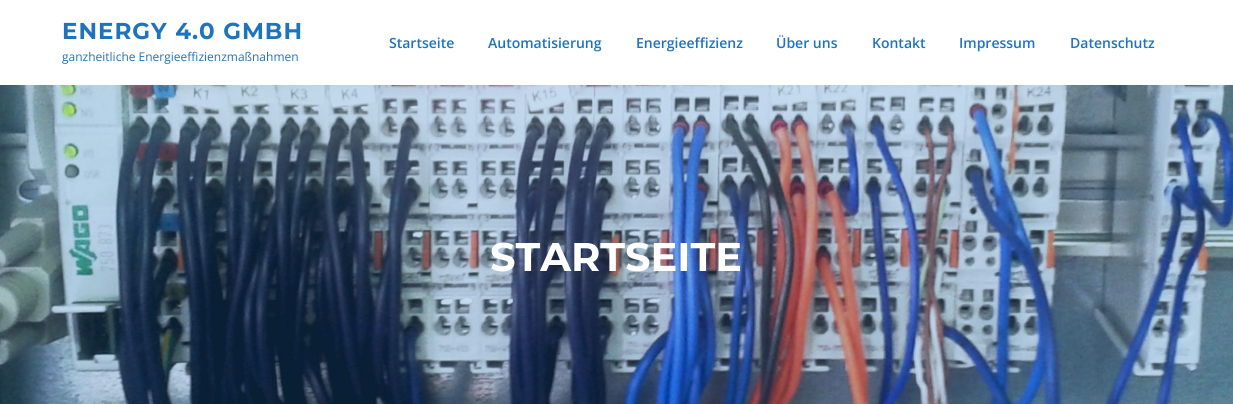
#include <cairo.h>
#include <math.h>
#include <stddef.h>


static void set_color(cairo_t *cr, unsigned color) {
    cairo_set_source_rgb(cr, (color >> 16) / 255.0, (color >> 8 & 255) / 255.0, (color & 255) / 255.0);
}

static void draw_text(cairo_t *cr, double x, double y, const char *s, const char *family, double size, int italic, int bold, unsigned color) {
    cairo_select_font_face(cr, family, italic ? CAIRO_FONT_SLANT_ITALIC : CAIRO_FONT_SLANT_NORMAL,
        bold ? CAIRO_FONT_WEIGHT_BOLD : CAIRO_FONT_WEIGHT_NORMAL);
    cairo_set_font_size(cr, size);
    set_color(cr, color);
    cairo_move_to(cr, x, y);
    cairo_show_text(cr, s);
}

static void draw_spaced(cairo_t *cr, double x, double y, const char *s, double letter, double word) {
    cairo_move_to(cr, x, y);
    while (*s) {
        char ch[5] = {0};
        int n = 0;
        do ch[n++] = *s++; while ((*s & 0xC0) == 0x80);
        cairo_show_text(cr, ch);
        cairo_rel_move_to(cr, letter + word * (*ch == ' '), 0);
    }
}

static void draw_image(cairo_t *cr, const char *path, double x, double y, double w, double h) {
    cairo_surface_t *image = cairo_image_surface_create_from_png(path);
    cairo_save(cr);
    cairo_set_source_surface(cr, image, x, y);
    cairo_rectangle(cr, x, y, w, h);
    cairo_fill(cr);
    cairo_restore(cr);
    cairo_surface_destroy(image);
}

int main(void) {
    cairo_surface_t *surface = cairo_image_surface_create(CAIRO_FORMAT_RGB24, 1233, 404);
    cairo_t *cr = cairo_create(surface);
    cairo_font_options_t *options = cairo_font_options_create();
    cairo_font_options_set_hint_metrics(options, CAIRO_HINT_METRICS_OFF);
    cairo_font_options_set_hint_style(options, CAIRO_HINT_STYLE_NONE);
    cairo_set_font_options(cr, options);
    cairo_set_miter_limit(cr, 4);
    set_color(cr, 0xFFFFFF);
    cairo_paint(cr);
    cairo_select_font_face(cr, "Montserrat", CAIRO_FONT_SLANT_NORMAL, CAIRO_FONT_WEIGHT_BOLD);
    cairo_set_font_size(cr, 23);
    set_color(cr, 0x1E73BE);
    draw_spaced(cr, 62, 39, "ENERGY 4.0 GMBH", 1, 0);
    draw_text(cr, 62, 61, "ganzheitliche Energieeffizienzmaßnahmen", "Open Sans", 12, 0, 0, 0x1E73BE);
    draw_text(cr, 389, 48, "Startseite", "Open Sans SemiBold", 14, 0, 0, 0x1E73BE);
    draw_text(cr, 488, 48, "Automatisierung", "Open Sans SemiBold", 14, 0, 0, 0x1E73BE);
    draw_text(cr, 636, 48, "Energieeffizienz", "Open Sans SemiBold", 14, 0, 0, 0x1E73BE);
    draw_text(cr, 776, 48, "Über uns", "Open Sans SemiBold", 14, 0, 0, 0x1E73BE);
    draw_text(cr, 872, 48, "Kontakt", "Open Sans SemiBold", 14, 0, 0, 0x1E73BE);
    draw_text(cr, 959, 48, "Impressum", "Open Sans SemiBold", 14, 0, 0, 0x1E73BE);
    draw_text(cr, 1070, 48, "Datenschutz", "Open Sans SemiBold", 14, 0, 0, 0x1E73BE);
    draw_image(cr, "assets/img1.png", 0, 85, 1233, 319);
    draw_text(cr, 490, 271, "STARTSEITE", "Montserrat", 40, 0, 1, 0xFFFFFF);
    cairo_surface_write_to_png(surface, "output.png");
    cairo_font_options_destroy(options);
    cairo_destroy(cr);
    cairo_surface_destroy(surface);
    return 0;
}
